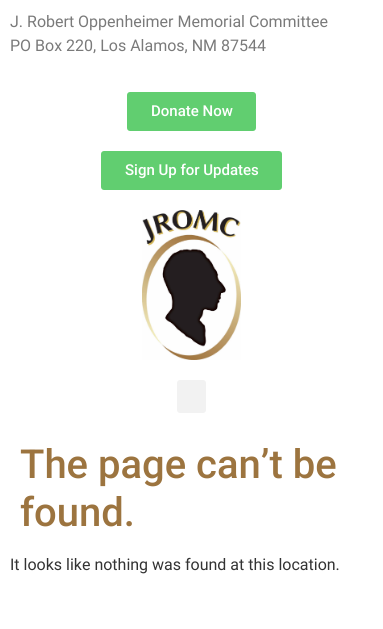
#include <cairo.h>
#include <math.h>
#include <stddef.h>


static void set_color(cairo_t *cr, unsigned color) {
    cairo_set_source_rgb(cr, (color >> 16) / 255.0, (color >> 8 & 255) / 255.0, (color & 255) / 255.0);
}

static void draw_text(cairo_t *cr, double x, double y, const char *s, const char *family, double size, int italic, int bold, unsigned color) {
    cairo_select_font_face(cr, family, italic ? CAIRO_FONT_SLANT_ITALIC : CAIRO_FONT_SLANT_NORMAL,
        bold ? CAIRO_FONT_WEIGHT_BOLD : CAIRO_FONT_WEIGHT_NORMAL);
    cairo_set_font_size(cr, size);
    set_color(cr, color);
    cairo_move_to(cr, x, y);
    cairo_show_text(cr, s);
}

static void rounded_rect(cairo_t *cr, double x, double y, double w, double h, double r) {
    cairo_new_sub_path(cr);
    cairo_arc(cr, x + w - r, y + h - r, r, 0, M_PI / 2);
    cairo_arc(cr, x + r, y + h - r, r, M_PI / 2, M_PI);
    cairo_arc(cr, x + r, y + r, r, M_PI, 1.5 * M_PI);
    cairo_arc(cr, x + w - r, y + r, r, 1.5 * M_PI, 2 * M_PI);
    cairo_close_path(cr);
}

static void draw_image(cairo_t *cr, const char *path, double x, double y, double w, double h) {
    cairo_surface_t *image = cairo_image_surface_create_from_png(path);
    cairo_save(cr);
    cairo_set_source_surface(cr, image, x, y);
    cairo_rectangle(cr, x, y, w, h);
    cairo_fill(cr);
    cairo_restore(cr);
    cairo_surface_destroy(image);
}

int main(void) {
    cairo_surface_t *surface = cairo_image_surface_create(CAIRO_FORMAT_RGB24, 383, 629);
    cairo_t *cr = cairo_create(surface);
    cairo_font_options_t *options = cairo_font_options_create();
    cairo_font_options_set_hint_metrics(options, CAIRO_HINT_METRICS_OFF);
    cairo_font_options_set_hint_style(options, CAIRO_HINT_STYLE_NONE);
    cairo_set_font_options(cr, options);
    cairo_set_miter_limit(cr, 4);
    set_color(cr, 0xFFFFFF);
    cairo_paint(cr);
    draw_text(cr, 10, 27, "J. Robert Oppenheimer Memorial Committee", "Roboto", 16, 0, 0, 0x7A7A7A);
    draw_text(cr, 10, 51, "PO Box 220, Los Alamos, NM 87544", "Roboto", 16, 0, 0, 0x7A7A7A);
    set_color(cr, 0x61CE70);
    rounded_rect(cr, 127, 92, 129, 39, 3);
    cairo_fill(cr);
    draw_text(cr, 151, 116, "Donate Now", "Roboto Medium", 15, 0, 0, 0xFFFFFF);
    set_color(cr, 0x61CE70);
    rounded_rect(cr, 101, 151, 181, 39, 3);
    cairo_fill(cr);
    draw_text(cr, 125, 175, "Sign Up for Updates", "Roboto Medium", 15, 0, 0, 0xFFFFFF);
    draw_image(cr, "assets/img1.png", 142, 210, 99, 150);
    set_color(cr, 0xF2F2F2);
    rounded_rect(cr, 177, 380, 29, 33, 3);
    cairo_fill(cr);
    draw_text(cr, 20, 478, "The page can’t be", "Roboto Medium", 40, 0, 0, 0x9C743F);
    draw_text(cr, 20, 526, "found.", "Roboto Medium", 40, 0, 0, 0x9C743F);
    draw_text(cr, 10, 570, "It looks like nothing was found at this location.", "Roboto", 16, 0, 0, 0x333333);
    cairo_surface_write_to_png(surface, "output.png");
    cairo_font_options_destroy(options);
    cairo_destroy(cr);
    cairo_surface_destroy(surface);
    return 0;
}
